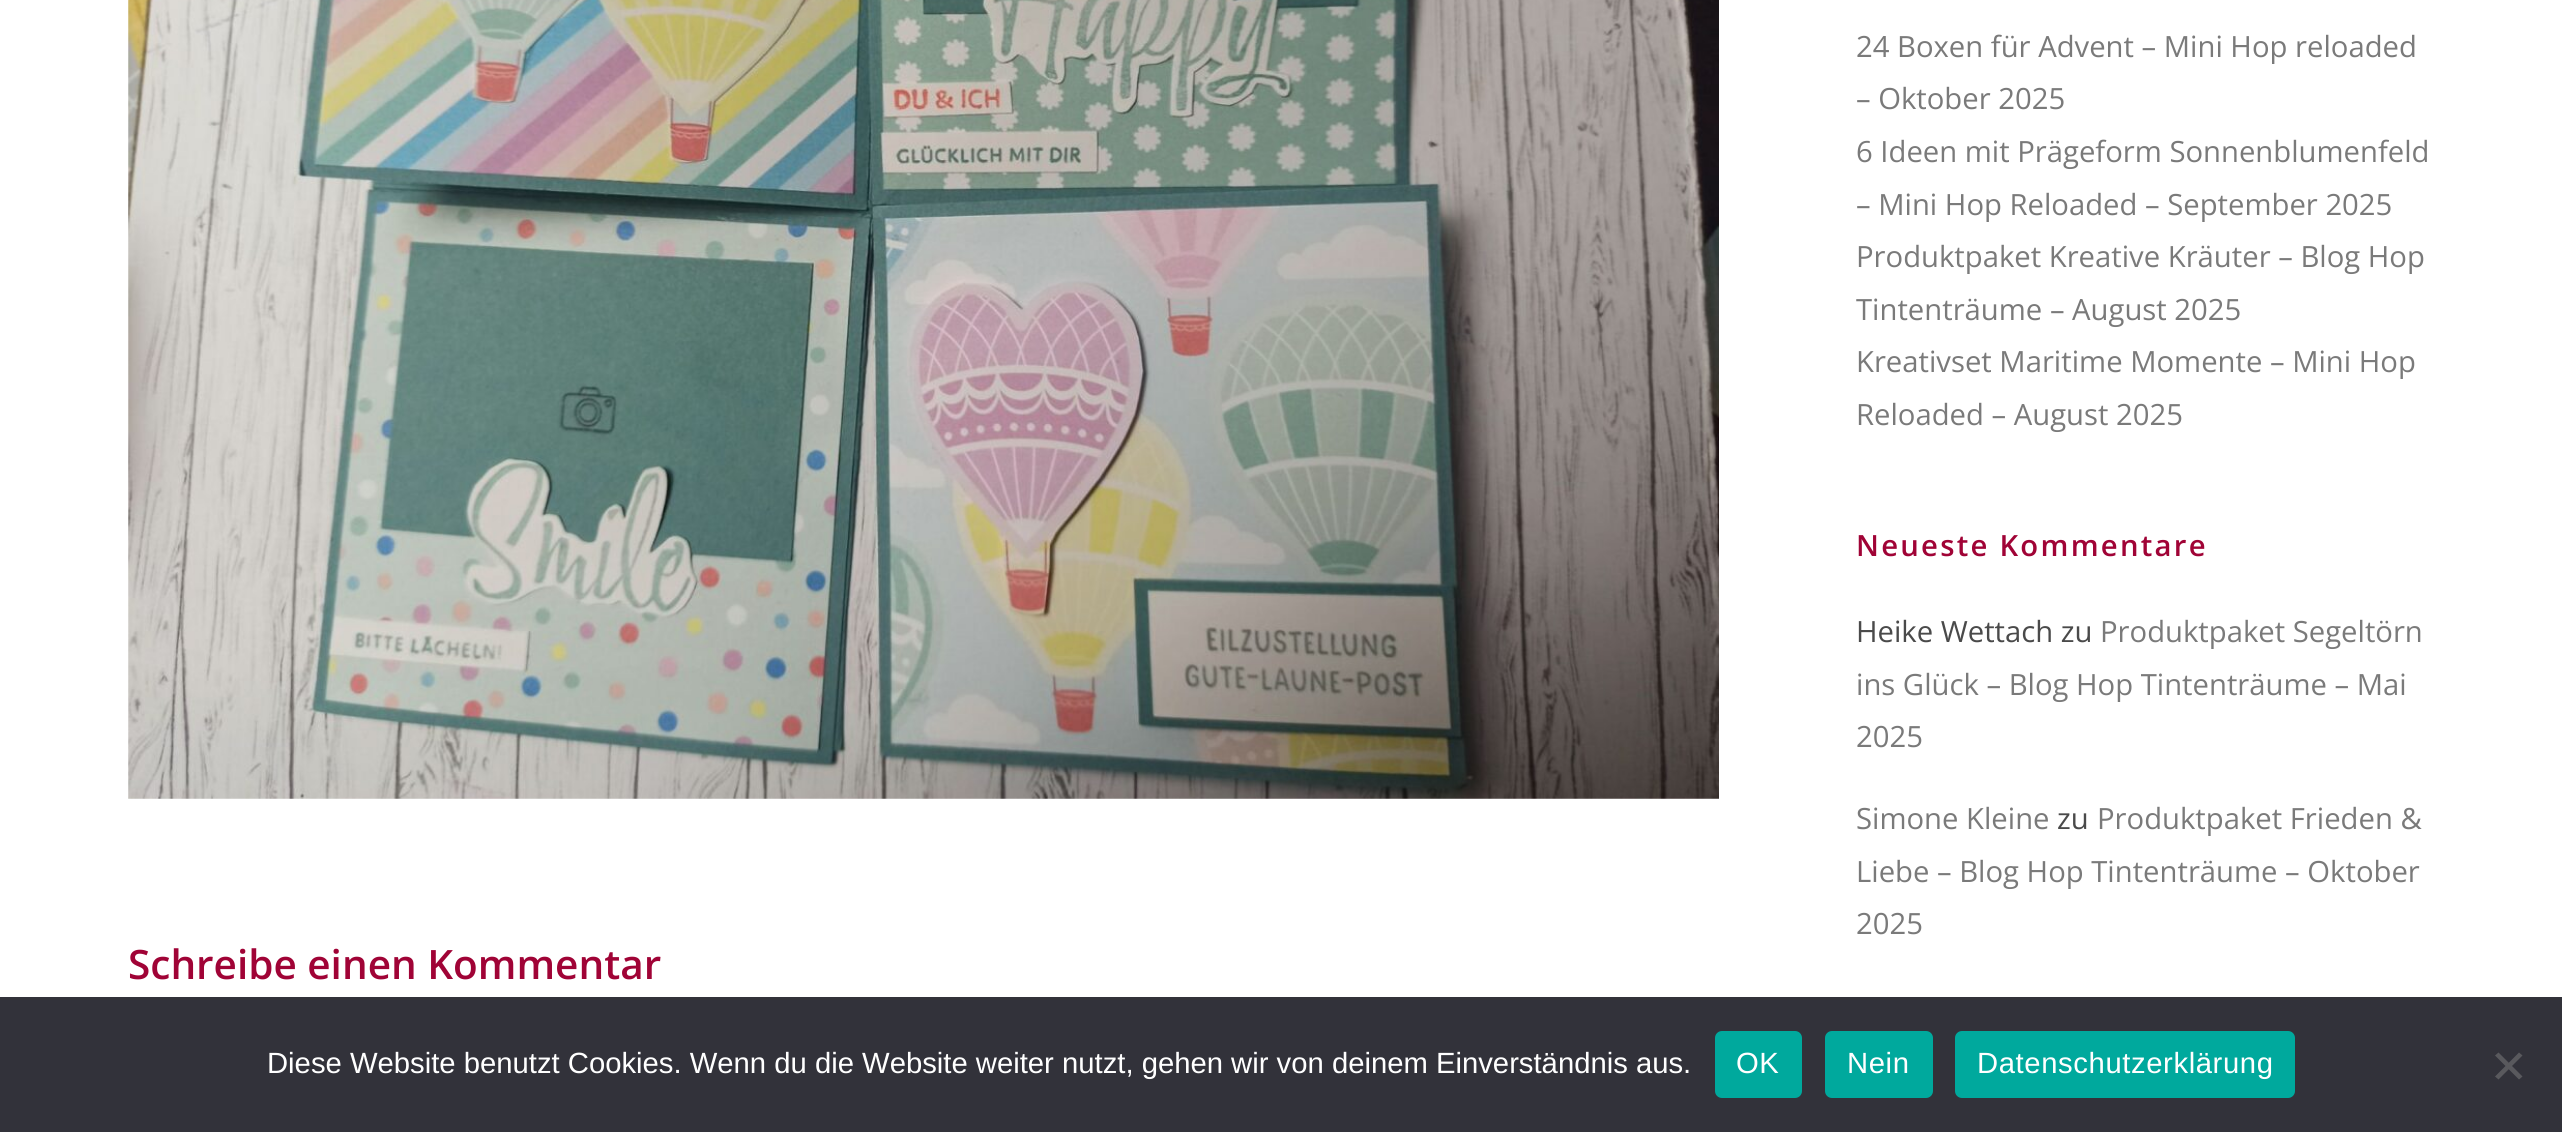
#include <cairo.h>
#include <math.h>
#include <stddef.h>


static void set_color(cairo_t *cr, unsigned color) {
    cairo_set_source_rgb(cr, (color >> 16) / 255.0, (color >> 8 & 255) / 255.0, (color & 255) / 255.0);
}

static void draw_text(cairo_t *cr, double x, double y, const char *s, const char *family, double size, int italic, int bold, unsigned color) {
    cairo_select_font_face(cr, family, italic ? CAIRO_FONT_SLANT_ITALIC : CAIRO_FONT_SLANT_NORMAL,
        bold ? CAIRO_FONT_WEIGHT_BOLD : CAIRO_FONT_WEIGHT_NORMAL);
    cairo_set_font_size(cr, size);
    set_color(cr, color);
    cairo_move_to(cr, x, y);
    cairo_show_text(cr, s);
}

static void draw_spaced(cairo_t *cr, double x, double y, const char *s, double letter, double word) {
    cairo_move_to(cr, x, y);
    while (*s) {
        char ch[5] = {0};
        int n = 0;
        do ch[n++] = *s++; while ((*s & 0xC0) == 0x80);
        cairo_show_text(cr, ch);
        cairo_rel_move_to(cr, letter + word * (*ch == ' '), 0);
    }
}

static void fill_rect(cairo_t *cr, double x, double y, double w, double h, unsigned color) {
    set_color(cr, color);
    cairo_rectangle(cr, x, y, w, h);
    cairo_fill(cr);
}

static void rounded_rect(cairo_t *cr, double x, double y, double w, double h, double r) {
    cairo_new_sub_path(cr);
    cairo_arc(cr, x + w - r, y + h - r, r, 0, M_PI / 2);
    cairo_arc(cr, x + r, y + h - r, r, M_PI / 2, M_PI);
    cairo_arc(cr, x + r, y + r, r, M_PI, 1.5 * M_PI);
    cairo_arc(cr, x + w - r, y + r, r, 1.5 * M_PI, 2 * M_PI);
    cairo_close_path(cr);
}

static void draw_image(cairo_t *cr, const char *path, double x, double y, double w, double h) {
    cairo_surface_t *image = cairo_image_surface_create_from_png(path);
    cairo_save(cr);
    cairo_set_source_surface(cr, image, x, y);
    cairo_rectangle(cr, x, y, w, h);
    cairo_fill(cr);
    cairo_restore(cr);
    cairo_surface_destroy(image);
}

int main(void) {
    cairo_surface_t *surface = cairo_image_surface_create(CAIRO_FORMAT_RGB24, 2562, 1132);
    cairo_t *cr = cairo_create(surface);
    cairo_font_options_t *options = cairo_font_options_create();
    cairo_font_options_set_hint_metrics(options, CAIRO_HINT_METRICS_OFF);
    cairo_font_options_set_hint_style(options, CAIRO_HINT_STYLE_NONE);
    cairo_set_font_options(cr, options);
    cairo_set_miter_limit(cr, 4);
    set_color(cr, 0xFFFFFF);
    cairo_paint(cr);
    draw_text(cr, 1856, 57, "24 Boxen für Advent – Mini Hop reloaded", "Open Sans", 29.25, 0, 0, 0x7A7A7A);
    draw_text(cr, 1856, 109, "– Oktober 2025", "Open Sans", 29.25, 0, 0, 0x7A7A7A);
    draw_text(cr, 1856, 162, "6 Ideen mit Prägeform Sonnenblumenfeld", "Open Sans", 29.25, 0, 0, 0x7A7A7A);
    draw_text(cr, 1856, 215, "– Mini Hop Reloaded – September 2025", "Open Sans", 29.25, 0, 0, 0x7A7A7A);
    draw_text(cr, 1856, 267, "Produktpaket Kreative Kräuter – Blog Hop", "Open Sans", 29.25, 0, 0, 0x7A7A7A);
    draw_text(cr, 1856, 320, "Tintenträume – August 2025", "Open Sans", 29.25, 0, 0, 0x7A7A7A);
    draw_text(cr, 1856, 372, "Kreativset Maritime Momente – Mini Hop", "Open Sans", 29.25, 0, 0, 0x7A7A7A);
    draw_text(cr, 1856, 425, "Reloaded – August 2025", "Open Sans", 29.25, 0, 0, 0x7A7A7A);
    cairo_select_font_face(cr, "Open Sans SemiBold", CAIRO_FONT_SLANT_NORMAL, CAIRO_FONT_WEIGHT_NORMAL);
    set_color(cr, 0xA00336);
    draw_spaced(cr, 1856, 556, "Neueste Kommentare", 2.25, 0);
    draw_text(cr, 1856, 642, "Heike Wettach zu", "Open Sans", 29.25, 0, 0, 0x4A4A4A);
    draw_text(cr, 2100, 642, "Produktpaket Segeltörn", "Open Sans", 29.25, 0, 0, 0x7A7A7A);
    draw_text(cr, 1856, 695, "ins Glück – Blog Hop Tintenträume – Mai", "Open Sans", 29.25, 0, 0, 0x7A7A7A);
    draw_text(cr, 1856, 747, "2025", "Open Sans", 29.25, 0, 0, 0x7A7A7A);
    draw_text(cr, 1856, 829, "Simone Kleine", "Open Sans", 29.25, 0, 0, 0x7A7A7A);
    draw_text(cr, 2057, 829, "zu", "Open Sans", 29.25, 0, 0, 0x4A4A4A);
    draw_text(cr, 2097, 829, "Produktpaket Frieden &", "Open Sans", 29.25, 0, 0, 0x7A7A7A);
    draw_text(cr, 1856, 882, "Liebe – Blog Hop Tintenträume – Oktober", "Open Sans", 29.25, 0, 0, 0x7A7A7A);
    draw_text(cr, 1856, 934, "2025", "Open Sans", 29.25, 0, 0, 0x7A7A7A);
    draw_image(cr, "assets/img1.png", 128, 0, 1591, 799);
    draw_text(cr, 128, 979, "Schreibe einen Kommentar", "Open Sans SemiBold", 40.5, 0, 0, 0xA00336);
    fill_rect(cr, 0, 997, 2562, 135, 0x32323A);
    draw_text(cr, 267, 1073, "Diese Website benutzt Cookies. Wenn du die Website weiter nutzt, gehen wir von deinem Einverständnis aus.", "Liberation Sans", 29.25, 0, 0, 0xFFFFFF);
    set_color(cr, 0x00A99D);
    rounded_rect(cr, 1715, 1031, 87, 67, 7);
    cairo_fill(cr);
    set_color(cr, 0xFFFFFF);
    draw_spaced(cr, 1736, 1073, "OK", 0.6, 0);
    set_color(cr, 0x00A99D);
    rounded_rect(cr, 1825, 1031, 108, 67, 7);
    cairo_fill(cr);
    set_color(cr, 0xFFFFFF);
    draw_spaced(cr, 1847, 1073, "Nein", 0.6, 0);
    set_color(cr, 0x00A99D);
    rounded_rect(cr, 1955, 1031, 340, 67, 7);
    cairo_fill(cr);
    set_color(cr, 0xFFFFFF);
    draw_spaced(cr, 1977, 1073, "Datenschutzerklärung", 0.6, 0);
    set_color(cr, 0x59595D);
    cairo_new_path(cr);
    cairo_move_to(cr, 2519, 1052.5);
    cairo_line_to(cr, 2522.5, 1055.5);
    cairo_line_to(cr, 2498.5, 1079.5);
    cairo_line_to(cr, 2495, 1076.5);
    cairo_close_path(cr);
    cairo_fill(cr);
    cairo_new_path(cr);
    cairo_move_to(cr, 2495, 1055.5);
    cairo_line_to(cr, 2498.5, 1052.5);
    cairo_line_to(cr, 2522.5, 1076.5);
    cairo_line_to(cr, 2519, 1079.5);
    cairo_close_path(cr);
    cairo_fill(cr);
    cairo_surface_write_to_png(surface, "output.png");
    cairo_font_options_destroy(options);
    cairo_destroy(cr);
    cairo_surface_destroy(surface);
    return 0;
}
